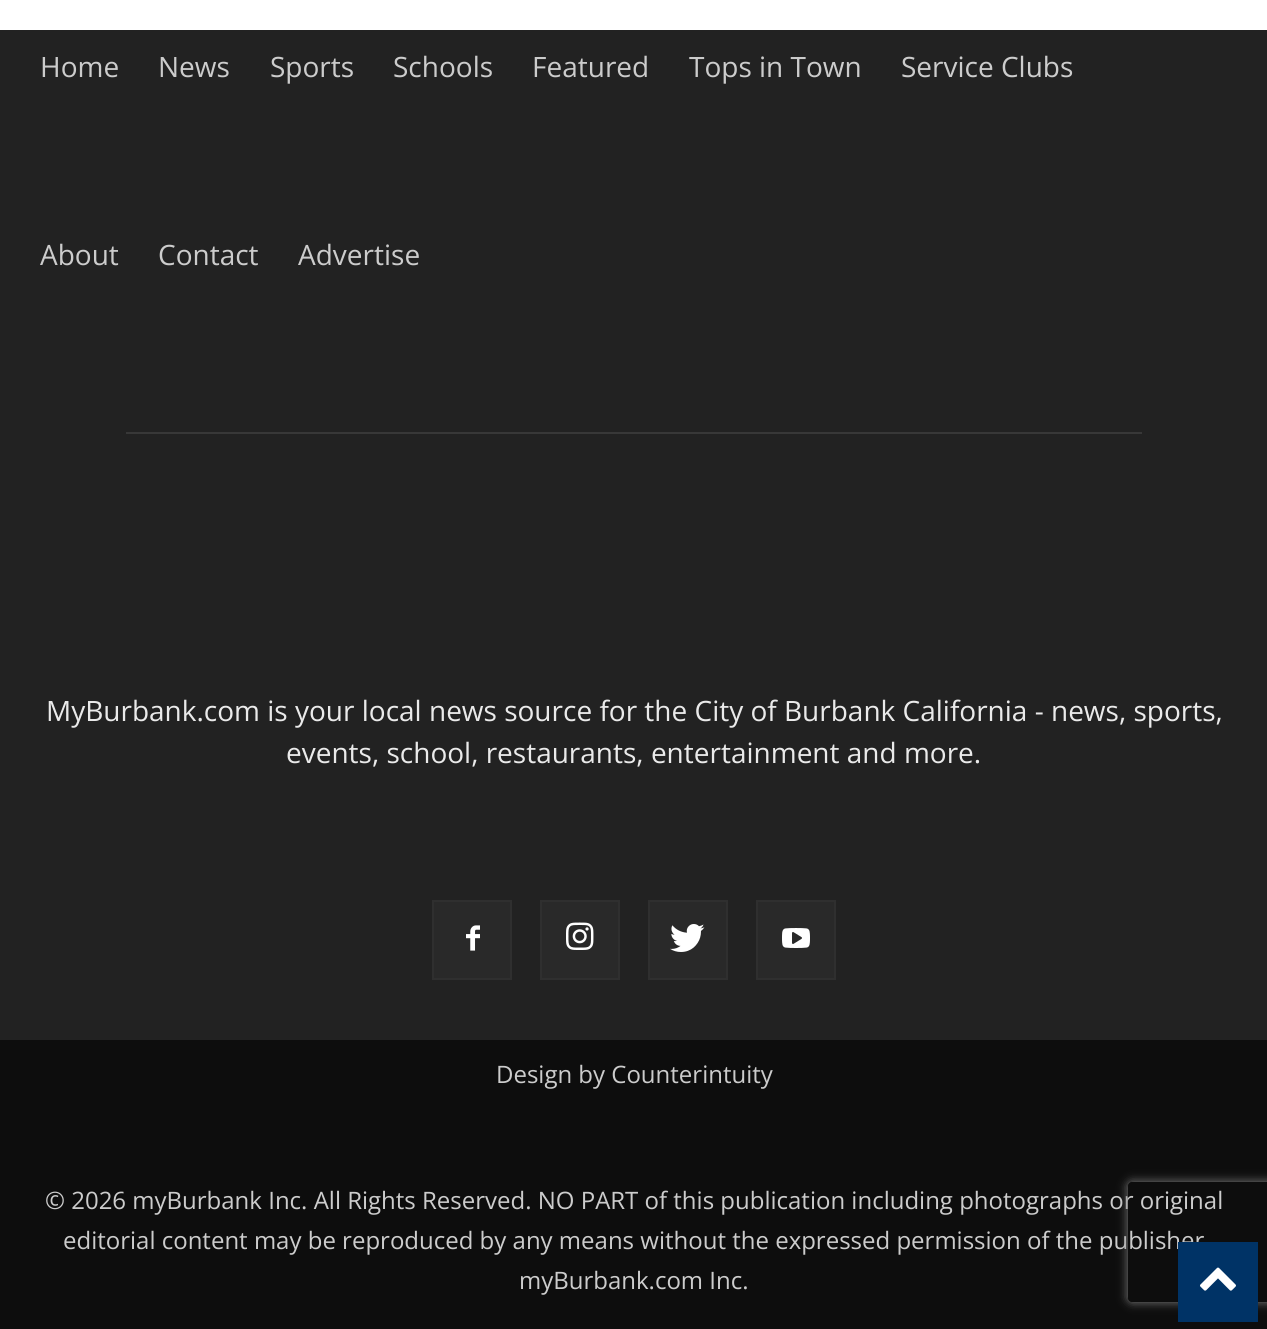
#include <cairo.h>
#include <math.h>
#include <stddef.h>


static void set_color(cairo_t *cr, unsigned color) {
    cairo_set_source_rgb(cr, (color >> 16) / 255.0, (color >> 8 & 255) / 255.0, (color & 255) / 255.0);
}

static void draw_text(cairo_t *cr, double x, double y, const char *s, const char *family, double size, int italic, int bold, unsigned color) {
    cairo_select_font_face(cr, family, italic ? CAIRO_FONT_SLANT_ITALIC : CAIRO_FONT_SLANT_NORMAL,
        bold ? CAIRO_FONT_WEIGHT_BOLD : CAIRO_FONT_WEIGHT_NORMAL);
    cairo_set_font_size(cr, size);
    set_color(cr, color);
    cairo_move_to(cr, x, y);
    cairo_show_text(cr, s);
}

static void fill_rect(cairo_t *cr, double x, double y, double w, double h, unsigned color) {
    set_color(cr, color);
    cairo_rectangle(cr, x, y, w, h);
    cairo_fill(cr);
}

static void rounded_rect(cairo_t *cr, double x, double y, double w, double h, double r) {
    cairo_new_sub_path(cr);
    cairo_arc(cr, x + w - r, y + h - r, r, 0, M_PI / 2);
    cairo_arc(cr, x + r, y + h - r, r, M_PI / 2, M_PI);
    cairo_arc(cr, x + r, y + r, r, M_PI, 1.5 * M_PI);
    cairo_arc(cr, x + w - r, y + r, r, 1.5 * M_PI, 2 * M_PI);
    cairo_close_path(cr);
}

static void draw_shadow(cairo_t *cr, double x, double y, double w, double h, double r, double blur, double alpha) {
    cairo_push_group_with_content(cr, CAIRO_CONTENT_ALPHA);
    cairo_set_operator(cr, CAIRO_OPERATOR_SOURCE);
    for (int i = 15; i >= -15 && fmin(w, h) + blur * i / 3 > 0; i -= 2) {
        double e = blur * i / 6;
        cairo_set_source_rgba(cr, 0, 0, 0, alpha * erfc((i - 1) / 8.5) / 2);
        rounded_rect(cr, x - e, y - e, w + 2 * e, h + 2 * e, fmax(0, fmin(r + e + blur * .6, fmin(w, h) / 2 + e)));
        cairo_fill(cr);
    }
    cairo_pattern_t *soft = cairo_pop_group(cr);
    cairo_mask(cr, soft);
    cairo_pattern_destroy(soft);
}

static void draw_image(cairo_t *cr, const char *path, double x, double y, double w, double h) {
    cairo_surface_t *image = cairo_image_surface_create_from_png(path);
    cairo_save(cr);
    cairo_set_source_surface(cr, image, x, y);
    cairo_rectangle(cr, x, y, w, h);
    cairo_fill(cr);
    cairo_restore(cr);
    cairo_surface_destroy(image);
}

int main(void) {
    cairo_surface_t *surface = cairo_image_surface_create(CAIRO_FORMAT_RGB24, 1267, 1329);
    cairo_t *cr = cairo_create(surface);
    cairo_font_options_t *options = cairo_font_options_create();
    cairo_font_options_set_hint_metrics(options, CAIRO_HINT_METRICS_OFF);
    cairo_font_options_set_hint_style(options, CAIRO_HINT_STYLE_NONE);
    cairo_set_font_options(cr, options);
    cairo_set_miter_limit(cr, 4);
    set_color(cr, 0xFFFFFF);
    cairo_paint(cr);
    fill_rect(cr, 0, 30, 1267, 1010, 0x222222);
    draw_text(cr, 40, 77, "Home", "Open Sans", 28, 0, 0, 0xCCCCCC);
    draw_text(cr, 158, 77, "News", "Open Sans", 28, 0, 0, 0xCCCCCC);
    draw_text(cr, 270, 77, "Sports", "Open Sans", 28, 0, 0, 0xCCCCCC);
    draw_text(cr, 393, 77, "Schools", "Open Sans", 28, 0, 0, 0xCCCCCC);
    draw_text(cr, 532, 77, "Featured", "Open Sans", 28, 0, 0, 0xCCCCCC);
    draw_text(cr, 689, 77, "Tops in Town", "Open Sans", 28, 0, 0, 0xCCCCCC);
    draw_text(cr, 901, 77, "Service Clubs", "Open Sans", 28, 0, 0, 0xCCCCCC);
    draw_text(cr, 40, 265, "About", "Open Sans", 28, 0, 0, 0xCCCCCC);
    draw_text(cr, 158, 265, "Contact", "Open Sans", 28, 0, 0, 0xCCCCCC);
    draw_text(cr, 298, 265, "Advertise", "Open Sans", 28, 0, 0, 0xCCCCCC);
    fill_rect(cr, 126, 432, 1016, 2, 0x383838);
    draw_text(cr, 46, 721, "MyBurbank.com is your local news source for the City of Burbank California - news, sports,", "Open Sans", 28, 0, 0, 0xEAEAEA);
    draw_text(cr, 286, 763, "events, school, restaurants, entertainment and more.", "Open Sans", 28, 0, 0, 0xEAEAEA);
    fill_rect(cr, 434, 902, 76, 76, 0x292929);
    draw_image(cr, "assets/img1.png", 466, 925, 14, 26);
    cairo_rectangle(cr, 433, 901, 78, 78);
    set_color(cr, 0x2F2F2F);
    cairo_stroke(cr);
    fill_rect(cr, 542, 902, 76, 76, 0x292929);
    draw_image(cr, "assets/img2.png", 566, 922, 28, 28);
    cairo_rectangle(cr, 541, 901, 78, 78);
    set_color(cr, 0x2F2F2F);
    cairo_stroke(cr);
    fill_rect(cr, 650, 902, 76, 76, 0x292929);
    draw_image(cr, "assets/img3.png", 670, 924, 35, 28);
    cairo_rectangle(cr, 649, 901, 78, 78);
    set_color(cr, 0x2F2F2F);
    cairo_stroke(cr);
    fill_rect(cr, 758, 902, 76, 76, 0x292929);
    draw_image(cr, "assets/img4.png", 782, 928, 28, 20);
    cairo_rectangle(cr, 757, 901, 78, 78);
    set_color(cr, 0x2F2F2F);
    cairo_stroke(cr);
    fill_rect(cr, 0, 1040, 1267, 289, 0x0D0D0D);
    draw_text(cr, 496, 1083, "Design by Counterintuity", "Open Sans", 24, 0, 0, 0xCCCCCC);
    draw_text(cr, 45, 1209, "© 2026 myBurbank Inc. All Rights Reserved. NO PART of this publication including photographs or original", "Open Sans", 24, 0, 0, 0xCCCCCC);
    draw_text(cr, 63, 1249, "editorial content may be reproduced by any means without the expressed permission of the publisher", "Open Sans", 24, 0, 0, 0xCCCCCC);
    draw_text(cr, 519, 1289, "myBurbank.com Inc.", "Open Sans", 24, 0, 0, 0xCCCCCC);
    cairo_save(cr);
    cairo_set_fill_rule(cr, CAIRO_FILL_RULE_EVEN_ODD);
    cairo_new_path(cr);
    cairo_move_to(cr, 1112, 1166);
    cairo_line_to(cr, 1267, 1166);
    cairo_line_to(cr, 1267, 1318);
    cairo_line_to(cr, 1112, 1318);
    cairo_close_path(cr);
    cairo_move_to(cr, 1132, 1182);
    cairo_line_to(cr, 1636, 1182);
    cairo_curve_to(cr, 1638, 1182, 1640, 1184, 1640, 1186);
    cairo_line_to(cr, 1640, 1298);
    cairo_curve_to(cr, 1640, 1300, 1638, 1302, 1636, 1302);
    cairo_line_to(cr, 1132, 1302);
    cairo_curve_to(cr, 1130, 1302, 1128, 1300, 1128, 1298);
    cairo_line_to(cr, 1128, 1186);
    cairo_curve_to(cr, 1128, 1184, 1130, 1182, 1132, 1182);
    cairo_close_path(cr);
    cairo_clip(cr);
    set_color(cr, 0x808080);
    draw_shadow(cr, 1128, 1182, 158, 120, 4, 5, 1);
    cairo_restore(cr);
    fill_rect(cr, 1178, 1242, 80, 80, 0x003366);
    draw_image(cr, "assets/img5.png", 1200, 1267, 36, 24);
    cairo_surface_write_to_png(surface, "output.png");
    cairo_font_options_destroy(options);
    cairo_destroy(cr);
    cairo_surface_destroy(surface);
    return 0;
}
